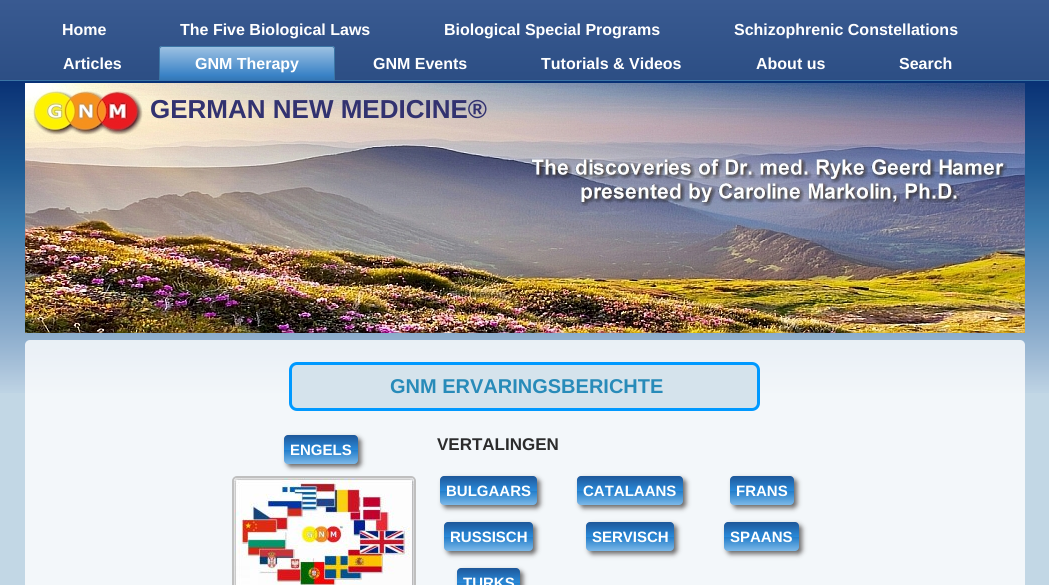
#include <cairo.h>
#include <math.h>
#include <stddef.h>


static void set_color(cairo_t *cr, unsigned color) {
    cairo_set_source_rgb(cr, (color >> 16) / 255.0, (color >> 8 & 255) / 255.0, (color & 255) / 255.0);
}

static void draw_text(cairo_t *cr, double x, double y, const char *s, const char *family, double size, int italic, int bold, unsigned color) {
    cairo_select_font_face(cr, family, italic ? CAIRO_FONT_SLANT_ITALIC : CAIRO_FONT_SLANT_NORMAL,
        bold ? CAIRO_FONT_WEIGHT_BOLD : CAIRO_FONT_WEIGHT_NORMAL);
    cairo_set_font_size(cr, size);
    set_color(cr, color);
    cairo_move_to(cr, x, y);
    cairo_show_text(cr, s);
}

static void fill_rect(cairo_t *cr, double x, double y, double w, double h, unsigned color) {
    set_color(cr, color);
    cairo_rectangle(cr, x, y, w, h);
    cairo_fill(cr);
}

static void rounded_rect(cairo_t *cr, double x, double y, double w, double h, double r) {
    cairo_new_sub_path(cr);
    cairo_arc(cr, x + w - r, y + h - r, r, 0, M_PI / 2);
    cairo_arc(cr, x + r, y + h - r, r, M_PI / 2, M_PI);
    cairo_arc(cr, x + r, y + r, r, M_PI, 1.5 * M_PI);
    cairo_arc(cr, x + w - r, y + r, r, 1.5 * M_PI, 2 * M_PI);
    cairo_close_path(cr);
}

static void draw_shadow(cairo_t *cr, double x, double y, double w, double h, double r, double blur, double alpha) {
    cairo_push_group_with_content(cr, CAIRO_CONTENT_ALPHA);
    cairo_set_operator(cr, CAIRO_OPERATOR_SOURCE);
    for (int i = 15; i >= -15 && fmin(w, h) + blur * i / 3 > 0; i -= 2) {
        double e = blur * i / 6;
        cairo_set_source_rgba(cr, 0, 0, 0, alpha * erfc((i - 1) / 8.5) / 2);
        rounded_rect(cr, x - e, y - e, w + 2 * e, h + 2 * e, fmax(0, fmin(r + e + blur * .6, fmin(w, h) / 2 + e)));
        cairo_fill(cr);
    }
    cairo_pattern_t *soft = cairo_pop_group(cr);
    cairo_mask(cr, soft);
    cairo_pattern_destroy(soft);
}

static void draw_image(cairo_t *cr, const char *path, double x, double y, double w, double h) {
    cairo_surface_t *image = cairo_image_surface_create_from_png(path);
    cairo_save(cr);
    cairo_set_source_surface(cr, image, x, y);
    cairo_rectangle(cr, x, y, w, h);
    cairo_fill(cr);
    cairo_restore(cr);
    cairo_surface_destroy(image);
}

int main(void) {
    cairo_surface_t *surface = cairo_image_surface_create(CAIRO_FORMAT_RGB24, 1049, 585);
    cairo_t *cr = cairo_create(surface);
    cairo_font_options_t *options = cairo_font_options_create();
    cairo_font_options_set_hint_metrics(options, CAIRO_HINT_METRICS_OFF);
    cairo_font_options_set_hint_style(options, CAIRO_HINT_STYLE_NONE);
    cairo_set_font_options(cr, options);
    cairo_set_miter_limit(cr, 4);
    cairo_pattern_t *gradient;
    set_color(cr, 0xC2D7E5);
    cairo_paint(cr);
    draw_image(cr, "assets/img1.png", 0, 81, 1049, 312);
    gradient = cairo_pattern_create_linear(525, 0, 525, 81);
    cairo_pattern_add_color_stop_rgba(gradient, 0, 0.224, 0.353, 0.569, 1);
    cairo_pattern_add_color_stop_rgba(gradient, 1, 0.173, 0.306, 0.518, 1);
    cairo_set_source(cr, gradient);
    cairo_pattern_destroy(gradient);
    cairo_rectangle(cr, 0, 0, 1049, 80);
    cairo_fill(cr);
    fill_rect(cr, 0, 80, 1049, 1, 0x3B75A5);
    draw_text(cr, 62, 35, "Home", "Liberation Sans", 16, 0, 1, 0xFFFFFF);
    draw_text(cr, 180, 35, "The Five Biological Laws", "Liberation Sans", 16, 0, 1, 0xFFFFFF);
    draw_text(cr, 444, 35, "Biological Special Programs", "Liberation Sans", 16, 0, 1, 0xFFFFFF);
    draw_text(cr, 734, 35, "Schizophrenic Constellations", "Liberation Sans", 16, 0, 1, 0xFFFFFF);
    draw_text(cr, 63, 69, "Articles", "Liberation Sans", 16, 0, 1, 0xFFFFFF);
    gradient = cairo_pattern_create_linear(247, 46, 247, 81);
    cairo_pattern_add_color_stop_rgba(gradient, 0, 0.627, 0.765, 0.89, 1);
    cairo_pattern_add_color_stop_rgba(gradient, 0.84, 0.224, 0.51, 0.776, 1);
    cairo_pattern_add_color_stop_rgba(gradient, 1, 0.204, 0.459, 0.698, 1);
    cairo_set_source(cr, gradient);
    cairo_pattern_destroy(gradient);
    cairo_new_path(cr);
    cairo_move_to(cr, 162, 46);
    cairo_line_to(cr, 332, 46);
    cairo_curve_to(cr, 333.5, 46, 335, 47.5, 335, 49);
    cairo_line_to(cr, 335, 81);
    cairo_line_to(cr, 159, 81);
    cairo_line_to(cr, 159, 49);
    cairo_curve_to(cr, 159, 47.5, 160.5, 46, 162, 46);
    cairo_close_path(cr);
    cairo_fill(cr);
    set_color(cr, 0x3B75A5);
    cairo_set_fill_rule(cr, CAIRO_FILL_RULE_EVEN_ODD);
    cairo_new_path(cr);
    cairo_move_to(cr, 162, 46);
    cairo_line_to(cr, 332, 46);
    cairo_curve_to(cr, 334, 46, 335, 47, 335, 49);
    cairo_line_to(cr, 335, 81);
    cairo_line_to(cr, 159, 81);
    cairo_line_to(cr, 159, 49);
    cairo_curve_to(cr, 159, 47, 160, 46, 162, 46);
    cairo_close_path(cr);
    cairo_move_to(cr, 162, 47);
    cairo_line_to(cr, 332, 47);
    cairo_curve_to(cr, 333, 47, 334, 48, 334, 49);
    cairo_line_to(cr, 334, 81);
    cairo_line_to(cr, 160, 81);
    cairo_line_to(cr, 160, 49);
    cairo_curve_to(cr, 160, 48, 161, 47, 162, 47);
    cairo_close_path(cr);
    cairo_fill(cr);
    draw_text(cr, 195, 69, "GNM Therapy", "Liberation Sans", 16, 0, 1, 0xFFFFFF);
    draw_text(cr, 373, 69, "GNM Events", "Liberation Sans", 16, 0, 1, 0xFFFFFF);
    draw_text(cr, 541, 69, "Tutorials & Videos", "Liberation Sans", 16, 0, 1, 0xFFFFFF);
    draw_text(cr, 756, 69, "About us", "Liberation Sans", 16, 0, 1, 0xFFFFFF);
    draw_text(cr, 899, 69, "Search", "Liberation Sans", 16, 0, 1, 0xFFFFFF);
    draw_image(cr, "assets/img2.png", 25, 83, 1000, 250);
    draw_text(cr, 150, 118, "GERMAN NEW MEDICINE®", "Liberation Sans", 26, 0, 1, 0x323270);
    cairo_set_source_rgba(cr, 1, 1, 1, 0.8);
    rounded_rect(cr, 25, 340, 1000, 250, 5);
    cairo_fill(cr);
    set_color(cr, 0xD5E3EC);
    rounded_rect(cr, 290.5, 363.5, 468, 46, 6.5);
    cairo_fill_preserve(cr);
    set_color(cr, 0x0099FF);
    cairo_set_line_width(cr, 3);
    cairo_stroke(cr);
    draw_text(cr, 390, 393, "GNM ERVARINGSBERICHTE", "Liberation Sans", 20, 0, 1, 0x288BB9);
    set_color(cr, 0x6A6868);
    draw_shadow(cr, 287, 438, 74, 29, 4, 2.5, 1);
    gradient = cairo_pattern_create_linear(321, 435, 321, 464);
    cairo_pattern_add_color_stop_rgba(gradient, 0, 0.118, 0.341, 0.6, 1);
    cairo_pattern_add_color_stop_rgba(gradient, 0.5, 0.161, 0.537, 0.847, 1);
    cairo_pattern_add_color_stop_rgba(gradient, 0.51, 0.125, 0.486, 0.792, 1);
    cairo_pattern_add_color_stop_rgba(gradient, 1, 0.49, 0.725, 0.91, 1);
    cairo_set_source(cr, gradient);
    cairo_pattern_destroy(gradient);
    rounded_rect(cr, 284, 435, 74, 29, 4);
    cairo_fill(cr);
    draw_text(cr, 290, 455, "ENGELS", "Liberation Sans", 15, 0, 1, 0xFFFFFF);
    draw_text(cr, 437, 450, "VERTALINGEN", "Liberation Sans", 17, 0, 1, 0x2C2C2C);
    rounded_rect(cr, 233, 477, 182, 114, 4);
    set_color(cr, 0xBFBFBF);
    cairo_set_line_width(cr, 2);
    cairo_stroke(cr);
    draw_image(cr, "assets/img3.png", 234, 478, 180, 107);
    set_color(cr, 0x6A6868);
    draw_shadow(cr, 443, 479, 97, 29, 4, 2.5, 1);
    gradient = cairo_pattern_create_linear(489, 476, 489, 505);
    cairo_pattern_add_color_stop_rgba(gradient, 0, 0.118, 0.341, 0.6, 1);
    cairo_pattern_add_color_stop_rgba(gradient, 0.5, 0.161, 0.537, 0.847, 1);
    cairo_pattern_add_color_stop_rgba(gradient, 0.51, 0.125, 0.486, 0.792, 1);
    cairo_pattern_add_color_stop_rgba(gradient, 1, 0.49, 0.725, 0.91, 1);
    cairo_set_source(cr, gradient);
    cairo_pattern_destroy(gradient);
    rounded_rect(cr, 440, 476, 97, 29, 4);
    cairo_fill(cr);
    draw_text(cr, 446, 496, "BULGAARS", "Liberation Sans", 15, 0, 1, 0xFFFFFF);
    set_color(cr, 0x6A6868);
    draw_shadow(cr, 447, 525, 89, 29, 4, 2.5, 1);
    gradient = cairo_pattern_create_linear(489, 522, 489, 551);
    cairo_pattern_add_color_stop_rgba(gradient, 0, 0.118, 0.341, 0.6, 1);
    cairo_pattern_add_color_stop_rgba(gradient, 0.5, 0.161, 0.537, 0.847, 1);
    cairo_pattern_add_color_stop_rgba(gradient, 0.51, 0.125, 0.486, 0.792, 1);
    cairo_pattern_add_color_stop_rgba(gradient, 1, 0.49, 0.725, 0.91, 1);
    cairo_set_source(cr, gradient);
    cairo_pattern_destroy(gradient);
    rounded_rect(cr, 444, 522, 89, 29, 4);
    cairo_fill(cr);
    draw_text(cr, 450, 542, "RUSSISCH", "Liberation Sans", 15, 0, 1, 0xFFFFFF);
    set_color(cr, 0x6A6868);
    draw_shadow(cr, 460, 571, 63, 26, 4, 2.5, 1);
    gradient = cairo_pattern_create_linear(489, 568, 489, 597);
    cairo_pattern_add_color_stop_rgba(gradient, 0, 0.118, 0.341, 0.6, 1);
    cairo_pattern_add_color_stop_rgba(gradient, 0.5, 0.161, 0.537, 0.847, 1);
    cairo_pattern_add_color_stop_rgba(gradient, 0.51, 0.125, 0.486, 0.792, 1);
    cairo_pattern_add_color_stop_rgba(gradient, 1, 0.49, 0.725, 0.91, 1);
    cairo_set_source(cr, gradient);
    cairo_pattern_destroy(gradient);
    rounded_rect(cr, 457, 568, 63, 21, 4);
    cairo_fill(cr);
    draw_text(cr, 463, 588, "TURKS", "Liberation Sans", 15, 0, 1, 0xFFFFFF);
    set_color(cr, 0x6A6868);
    draw_shadow(cr, 580, 479, 106, 29, 4, 2.5, 1);
    gradient = cairo_pattern_create_linear(630, 476, 630, 505);
    cairo_pattern_add_color_stop_rgba(gradient, 0, 0.118, 0.341, 0.6, 1);
    cairo_pattern_add_color_stop_rgba(gradient, 0.5, 0.161, 0.537, 0.847, 1);
    cairo_pattern_add_color_stop_rgba(gradient, 0.51, 0.125, 0.486, 0.792, 1);
    cairo_pattern_add_color_stop_rgba(gradient, 1, 0.49, 0.725, 0.91, 1);
    cairo_set_source(cr, gradient);
    cairo_pattern_destroy(gradient);
    rounded_rect(cr, 577, 476, 106, 29, 4);
    cairo_fill(cr);
    draw_text(cr, 583, 496, "CATALAANS", "Liberation Sans", 15, 0, 1, 0xFFFFFF);
    set_color(cr, 0x6A6868);
    draw_shadow(cr, 589, 525, 88, 29, 4, 2.5, 1);
    gradient = cairo_pattern_create_linear(630, 522, 630, 551);
    cairo_pattern_add_color_stop_rgba(gradient, 0, 0.118, 0.341, 0.6, 1);
    cairo_pattern_add_color_stop_rgba(gradient, 0.5, 0.161, 0.537, 0.847, 1);
    cairo_pattern_add_color_stop_rgba(gradient, 0.51, 0.125, 0.486, 0.792, 1);
    cairo_pattern_add_color_stop_rgba(gradient, 1, 0.49, 0.725, 0.91, 1);
    cairo_set_source(cr, gradient);
    cairo_pattern_destroy(gradient);
    rounded_rect(cr, 586, 522, 88, 29, 4);
    cairo_fill(cr);
    draw_text(cr, 592, 542, "SERVISCH", "Liberation Sans", 15, 0, 1, 0xFFFFFF);
    set_color(cr, 0x6A6868);
    draw_shadow(cr, 733, 479, 64, 29, 4, 2.5, 1);
    gradient = cairo_pattern_create_linear(762, 476, 762, 505);
    cairo_pattern_add_color_stop_rgba(gradient, 0, 0.118, 0.341, 0.6, 1);
    cairo_pattern_add_color_stop_rgba(gradient, 0.5, 0.161, 0.537, 0.847, 1);
    cairo_pattern_add_color_stop_rgba(gradient, 0.51, 0.125, 0.486, 0.792, 1);
    cairo_pattern_add_color_stop_rgba(gradient, 1, 0.49, 0.725, 0.91, 1);
    cairo_set_source(cr, gradient);
    cairo_pattern_destroy(gradient);
    rounded_rect(cr, 730, 476, 64, 29, 4);
    cairo_fill(cr);
    draw_text(cr, 736, 496, "FRANS", "Liberation Sans", 15, 0, 1, 0xFFFFFF);
    set_color(cr, 0x6A6868);
    draw_shadow(cr, 727, 525, 75, 29, 4, 2.5, 1);
    gradient = cairo_pattern_create_linear(762, 522, 762, 551);
    cairo_pattern_add_color_stop_rgba(gradient, 0, 0.118, 0.341, 0.6, 1);
    cairo_pattern_add_color_stop_rgba(gradient, 0.5, 0.161, 0.537, 0.847, 1);
    cairo_pattern_add_color_stop_rgba(gradient, 0.51, 0.125, 0.486, 0.792, 1);
    cairo_pattern_add_color_stop_rgba(gradient, 1, 0.49, 0.725, 0.91, 1);
    cairo_set_source(cr, gradient);
    cairo_pattern_destroy(gradient);
    rounded_rect(cr, 724, 522, 75, 29, 4);
    cairo_fill(cr);
    draw_text(cr, 730, 542, "SPAANS", "Liberation Sans", 15, 0, 1, 0xFFFFFF);
    cairo_surface_write_to_png(surface, "output.png");
    cairo_font_options_destroy(options);
    cairo_destroy(cr);
    cairo_surface_destroy(surface);
    return 0;
}
